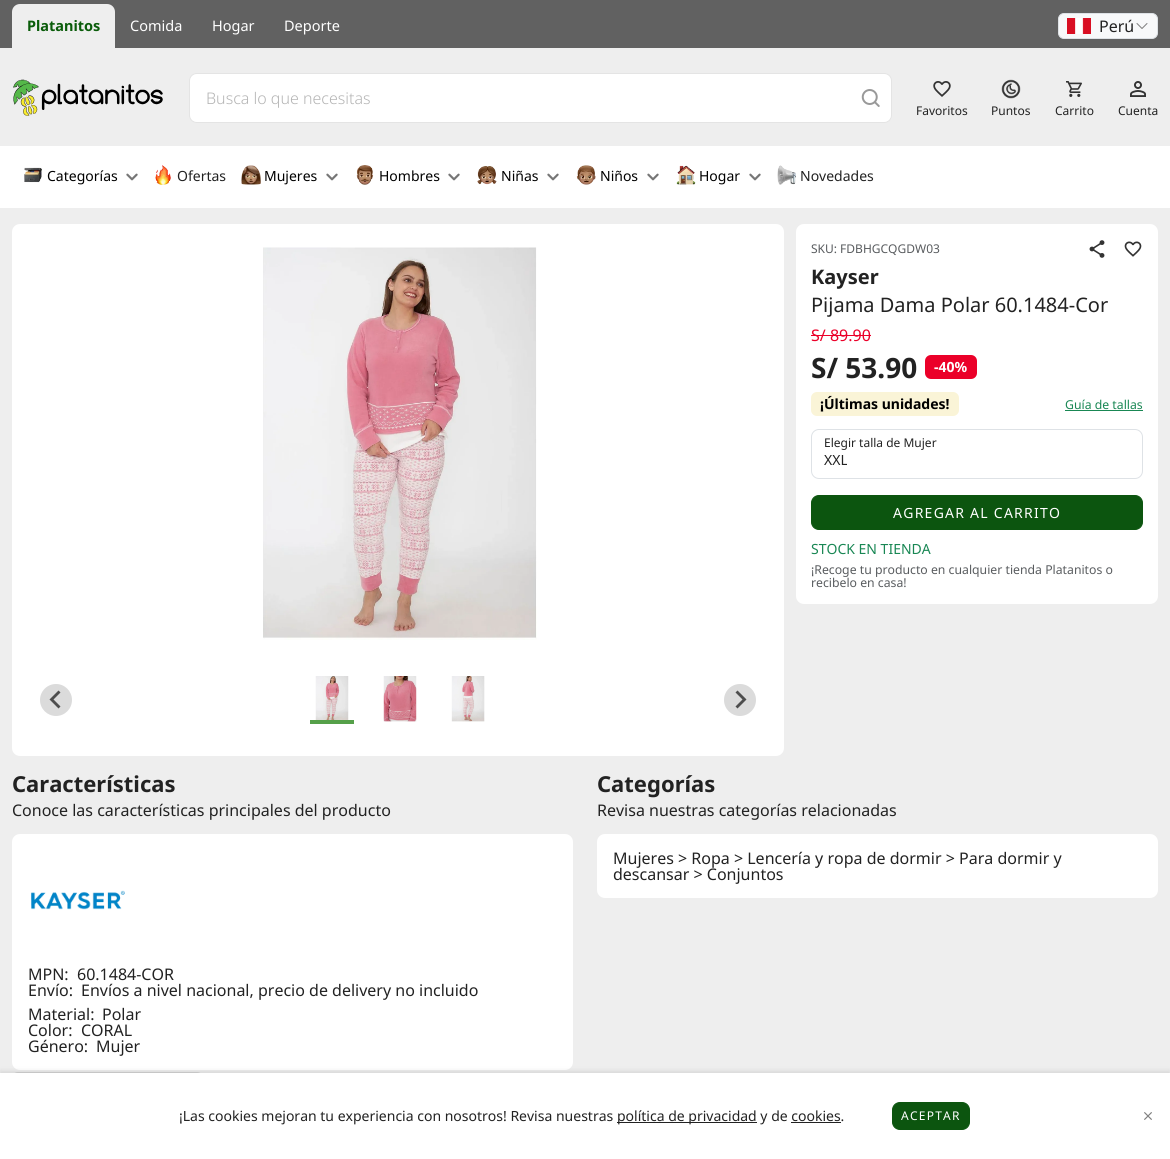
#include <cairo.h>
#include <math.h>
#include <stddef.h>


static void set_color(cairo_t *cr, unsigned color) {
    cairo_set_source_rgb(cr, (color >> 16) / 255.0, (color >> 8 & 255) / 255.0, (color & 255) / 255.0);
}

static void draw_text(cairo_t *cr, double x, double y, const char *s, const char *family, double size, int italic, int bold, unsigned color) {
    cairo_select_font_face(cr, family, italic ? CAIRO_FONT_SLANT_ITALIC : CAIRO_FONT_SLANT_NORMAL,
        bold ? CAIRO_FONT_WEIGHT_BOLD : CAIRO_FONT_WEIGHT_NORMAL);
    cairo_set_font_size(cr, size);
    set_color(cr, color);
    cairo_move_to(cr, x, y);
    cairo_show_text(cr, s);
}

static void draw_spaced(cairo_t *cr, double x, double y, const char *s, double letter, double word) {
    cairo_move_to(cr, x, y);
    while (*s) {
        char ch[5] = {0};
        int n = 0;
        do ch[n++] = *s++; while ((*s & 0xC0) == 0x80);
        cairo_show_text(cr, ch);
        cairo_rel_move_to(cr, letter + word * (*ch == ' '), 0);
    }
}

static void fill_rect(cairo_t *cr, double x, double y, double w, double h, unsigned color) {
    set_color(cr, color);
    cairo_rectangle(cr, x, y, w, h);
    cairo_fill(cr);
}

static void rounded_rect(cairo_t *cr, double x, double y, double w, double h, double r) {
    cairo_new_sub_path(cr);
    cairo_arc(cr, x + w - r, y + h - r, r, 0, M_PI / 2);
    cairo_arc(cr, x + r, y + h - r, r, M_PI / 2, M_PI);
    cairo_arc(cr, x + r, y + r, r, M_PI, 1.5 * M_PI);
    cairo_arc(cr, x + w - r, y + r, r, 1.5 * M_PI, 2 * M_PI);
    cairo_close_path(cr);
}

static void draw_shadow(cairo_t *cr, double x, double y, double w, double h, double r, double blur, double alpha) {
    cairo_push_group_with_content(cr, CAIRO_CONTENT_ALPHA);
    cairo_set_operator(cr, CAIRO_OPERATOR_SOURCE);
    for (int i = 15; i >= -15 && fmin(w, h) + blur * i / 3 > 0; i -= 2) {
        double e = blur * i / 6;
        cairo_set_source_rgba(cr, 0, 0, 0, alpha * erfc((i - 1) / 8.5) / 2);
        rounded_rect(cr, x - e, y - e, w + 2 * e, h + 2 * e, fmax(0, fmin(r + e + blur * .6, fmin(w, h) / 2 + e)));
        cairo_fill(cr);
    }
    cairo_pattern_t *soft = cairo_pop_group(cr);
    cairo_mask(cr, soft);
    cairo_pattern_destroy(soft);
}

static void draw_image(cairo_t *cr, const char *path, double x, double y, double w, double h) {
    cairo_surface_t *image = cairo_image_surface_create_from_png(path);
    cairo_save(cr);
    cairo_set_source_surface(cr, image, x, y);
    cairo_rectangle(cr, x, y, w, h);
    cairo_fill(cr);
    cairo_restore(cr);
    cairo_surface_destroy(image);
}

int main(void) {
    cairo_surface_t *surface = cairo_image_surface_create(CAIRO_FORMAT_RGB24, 1170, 1159);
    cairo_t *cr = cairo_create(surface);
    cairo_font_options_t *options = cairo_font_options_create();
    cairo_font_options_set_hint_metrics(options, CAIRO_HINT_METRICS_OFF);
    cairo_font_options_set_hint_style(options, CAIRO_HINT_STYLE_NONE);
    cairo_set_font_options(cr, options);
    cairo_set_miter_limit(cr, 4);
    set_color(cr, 0xEEEEEE);
    cairo_paint(cr);
    fill_rect(cr, 0, 0, 1170, 48, 0x616161);
    set_color(cr, 0xEEEEEE);
    cairo_new_path(cr);
    cairo_move_to(cr, 20, 4);
    cairo_line_to(cr, 107, 4);
    cairo_curve_to(cr, 111.5, 4, 115, 7.5, 115, 12);
    cairo_line_to(cr, 115, 50);
    cairo_line_to(cr, 12, 50);
    cairo_line_to(cr, 12, 12);
    cairo_curve_to(cr, 12, 7.5, 15.5, 4, 20, 4);
    cairo_close_path(cr);
    cairo_fill(cr);
    draw_text(cr, 27, 31, "Platanitos", "Noto Sans", 14.5, 0, 1, 0x0A5C0A);
    draw_text(cr, 130, 31, "Comida", "Noto Sans", 14.5, 0, 0, 0xFFFFFF);
    draw_text(cr, 212, 31, "Hogar", "Noto Sans", 14.5, 0, 0, 0xFFFFFF);
    draw_text(cr, 284, 31, "Deporte", "Noto Sans", 14.5, 0, 0, 0xFFFFFF);
    set_color(cr, 0xF8F9FA);
    rounded_rect(cr, 1058.5, 13.5, 99, 25, 5.5);
    cairo_fill_preserve(cr);
    set_color(cr, 0xDEE2E6);
    cairo_set_line_width(cr, 1);
    cairo_stroke(cr);
    draw_image(cr, "assets/img1.png", 1067, 18, 24, 16);
    draw_text(cr, 1099, 32, "Perú", "Noto Sans", 16, 0, 0, 0x222222);
    cairo_new_path(cr);
    cairo_move_to(cr, 1147, 23.5);
    cairo_line_to(cr, 1142, 28.5);
    cairo_line_to(cr, 1137, 23.5);
    set_color(cr, 0x808080);
    cairo_set_line_cap(cr, CAIRO_LINE_CAP_ROUND);
    cairo_set_line_join(cr, CAIRO_LINE_JOIN_ROUND);
    cairo_stroke(cr);
    draw_image(cr, "assets/img2.png", 13, 79, 150, 37);
    rounded_rect(cr, 189.5, 73.5, 702, 49, 7.5);
    set_color(cr, 0xE4E4E4);
    cairo_set_line_cap(cr, CAIRO_LINE_CAP_BUTT);
    cairo_set_line_join(cr, CAIRO_LINE_JOIN_MITER);
    cairo_stroke(cr);
    set_color(cr, 0xFFFFFF);
    rounded_rect(cr, 190, 74, 701, 48, 7);
    cairo_fill(cr);
    draw_text(cr, 206, 104, "Busca lo que necesitas", "Noto Sans Light", 16, 0, 0, 0xB4B4B4);
    draw_image(cr, "assets/img3.png", 861, 89, 19, 18);
    draw_image(cr, "assets/img4.png", 933, 81, 18, 16);
    draw_text(cr, 916, 115, "Favoritos", "Noto Sans", 12, 0, 0, 0x222222);
    draw_image(cr, "assets/img5.png", 1001, 79, 20, 20);
    draw_text(cr, 991, 115, "Puntos", "Noto Sans", 12, 0, 0, 0x222222);
    draw_image(cr, "assets/img6.png", 1066, 81, 16, 16);
    draw_text(cr, 1055, 115, "Carrito", "Noto Sans", 12, 0, 0, 0x222222);
    draw_image(cr, "assets/img7.png", 1130, 81, 16, 16);
    draw_text(cr, 1118, 115, "Cuenta", "Noto Sans", 12, 0, 0, 0x222222);
    fill_rect(cr, 0, 146, 1170, 62, 0xFFFFFF);
    draw_image(cr, "assets/img8.png", 24, 167, 18, 16);
    draw_text(cr, 47, 181, "Categorías", "Noto Sans", 14, 0, 0, 0x000000);
    draw_image(cr, "assets/img9.png", 126, 173, 12, 8);
    draw_image(cr, "assets/img10.png", 155, 165, 16, 20);
    draw_text(cr, 177, 181, "Ofertas", "Noto Sans", 14, 0, 0, 0x222222);
    draw_image(cr, "assets/img11.png", 241, 165, 20, 20);
    draw_text(cr, 264, 181, "Mujeres", "Noto Sans", 14, 0, 0, 0x000000);
    draw_image(cr, "assets/img9.png", 326, 173, 12, 8);
    draw_image(cr, "assets/img12.png", 356, 165, 18, 20);
    draw_text(cr, 379, 181, "Hombres", "Noto Sans", 14, 0, 0, 0x000000);
    draw_image(cr, "assets/img9.png", 448, 173, 12, 8);
    draw_image(cr, "assets/img13.png", 477, 166, 20, 19);
    draw_text(cr, 501, 181, "Niñas", "Noto Sans", 14, 0, 0, 0x000000);
    draw_image(cr, "assets/img9.png", 547, 173, 12, 8);
    draw_image(cr, "assets/img14.png", 576, 165, 20, 20);
    draw_text(cr, 600, 181, "Niños", "Noto Sans", 14, 0, 0, 0x000000);
    draw_image(cr, "assets/img9.png", 647, 173, 12, 8);
    draw_image(cr, "assets/img15.png", 676, 165, 20, 20);
    draw_text(cr, 699, 181, "Hogar", "Noto Sans", 14, 0, 0, 0x000000);
    draw_image(cr, "assets/img9.png", 749, 173, 12, 8);
    draw_image(cr, "assets/img16.png", 777, 165, 19, 20);
    draw_text(cr, 800, 181, "Novedades", "Noto Sans", 14, 0, 0, 0x222222);
    set_color(cr, 0xFFFFFF);
    rounded_rect(cr, 12, 224, 772, 532, 8);
    cairo_fill(cr);
    draw_image(cr, "assets/img17.png", 263, 247, 274, 393);
    draw_image(cr, "assets/img18.png", 315, 676, 34, 44);
    fill_rect(cr, 310, 720, 44, 4, 0x55A049);
    draw_image(cr, "assets/img19.png", 383, 676, 34, 46);
    draw_image(cr, "assets/img20.png", 451, 676, 34, 46);
    set_color(cr, 0xDBDBDB);
    cairo_arc(cr, 56, 700, 16, 0, 2 * M_PI);
    cairo_fill(cr);
    set_color(cr, 0x4D4D4D);
    cairo_new_path(cr);
    cairo_move_to(cr, 58.5, 690.5);
    cairo_line_to(cr, 60.5, 692.5);
    cairo_line_to(cr, 53.5, 699.5);
    cairo_line_to(cr, 60.5, 706.5);
    cairo_line_to(cr, 58.5, 708.5);
    cairo_line_to(cr, 49.5, 699.5);
    cairo_close_path(cr);
    cairo_fill(cr);
    set_color(cr, 0xDBDBDB);
    cairo_arc(cr, 740, 700, 16, 0, 2 * M_PI);
    cairo_fill(cr);
    set_color(cr, 0x4D4D4D);
    cairo_new_path(cr);
    cairo_move_to(cr, 737.5, 690.5);
    cairo_line_to(cr, 735.5, 692.5);
    cairo_line_to(cr, 742.5, 699.5);
    cairo_line_to(cr, 735.5, 706.5);
    cairo_line_to(cr, 737.5, 708.5);
    cairo_line_to(cr, 746.5, 699.5);
    cairo_close_path(cr);
    cairo_fill(cr);
    set_color(cr, 0xFFFFFF);
    rounded_rect(cr, 796, 224, 362, 380, 8);
    cairo_fill(cr);
    draw_text(cr, 811, 253, "SKU: FDBHGCQGDW03", "Noto Sans", 12, 0, 0, 0x595C5F);
    draw_image(cr, "assets/img21.png", 1089, 240, 16, 18);
    draw_image(cr, "assets/img22.png", 1124, 241, 18, 16);
    draw_text(cr, 811, 284, "Kayser", "Noto Sans", 20, 0, 1, 0x222222);
    draw_text(cr, 811, 312, "Pijama Dama Polar 60.1484-Cor", "Noto Sans", 20, 0, 0, 0x222222);
    draw_text(cr, 811, 341, "S/ 89.90", "Noto Sans", 16, 0, 0, 0xEB0029);
    fill_rect(cr, 811, 335, 60, 1, 0xEB0029);
    draw_text(cr, 811, 378, "S/ 53.90", "Noto Sans", 28, 0, 1, 0x222222);
    set_color(cr, 0xEB0029);
    rounded_rect(cr, 925, 355, 52, 24, 6);
    cairo_fill(cr);
    draw_text(cr, 934, 372, "-40%", "Noto Sans", 14, 0, 1, 0xFFFFFF);
    set_color(cr, 0xFAF4D7);
    rounded_rect(cr, 811, 392, 148, 24, 6);
    cairo_fill(cr);
    draw_text(cr, 820, 409, "¡Últimas unidades!", "Noto Sans", 14, 0, 1, 0x000000);
    draw_text(cr, 1065, 409, "Guía de tallas", "Noto Sans", 12.25, 0, 0, 0x198754);
    fill_rect(cr, 1065, 410, 78, 1, 0x198754);
    rounded_rect(cr, 811.5, 429.5, 331, 49, 7.5);
    set_color(cr, 0xDEE2E6);
    cairo_stroke(cr);
    draw_text(cr, 824, 447, "Elegir talla de Mujer", "Noto Sans", 12, 0, 0, 0x222222);
    draw_text(cr, 824, 465, "XXL", "Noto Sans", 14, 0, 0, 0x222222);
    set_color(cr, 0x0C550F);
    rounded_rect(cr, 811.5, 495.5, 331, 34, 7.5);
    cairo_fill_preserve(cr);
    cairo_stroke(cr);
    set_color(cr, 0xFFFFFF);
    draw_spaced(cr, 893, 518, "AGREGAR AL CARRITO", 1.25, 0);
    draw_text(cr, 811, 554, "STOCK EN TIENDA", "Noto Sans", 14, 0, 0, 0x198754);
    draw_text(cr, 811, 574, "¡Recoge tu producto en cualquier tienda Platanitos o", "Noto Sans", 12.25, 0, 0, 0x595C5F);
    draw_text(cr, 811, 587, "recibelo en casa!", "Noto Sans", 12.25, 0, 0, 0x595C5F);
    draw_text(cr, 12, 792, "Características", "Noto Sans", 22, 0, 1, 0x222222);
    draw_text(cr, 12, 816, "Conoce las características principales del producto", "Noto Sans", 16, 0, 0, 0x222222);
    set_color(cr, 0xFFFFFF);
    rounded_rect(cr, 12, 834, 561, 236, 8);
    cairo_fill(cr);
    draw_image(cr, "assets/img23.png", 31, 890, 94, 20);
    draw_text(cr, 28, 980, "MPN:", "Noto Sans", 16, 0, 0, 0x222222);
    draw_text(cr, 77, 980, "60.1484-COR", "Noto Sans", 16, 0, 0, 0x222222);
    draw_text(cr, 28, 996, "Envío:", "Noto Sans", 16, 0, 0, 0x222222);
    draw_text(cr, 81, 996, "Envíos a nivel nacional, precio de delivery no incluido", "Noto Sans", 16, 0, 0, 0x222222);
    draw_text(cr, 28, 1020, "Material:", "Noto Sans", 16, 0, 0, 0x222222);
    draw_text(cr, 102, 1020, "Polar", "Noto Sans", 16, 0, 0, 0x222222);
    draw_text(cr, 28, 1036, "Color:", "Noto Sans", 16, 0, 0, 0x222222);
    draw_text(cr, 81, 1036, "CORAL", "Noto Sans", 16, 0, 0, 0x222222);
    draw_text(cr, 28, 1052, "Género:", "Noto Sans", 16, 0, 0, 0x222222);
    draw_text(cr, 96, 1052, "Mujer", "Noto Sans", 16, 0, 0, 0x222222);
    draw_text(cr, 597, 792, "Categorías", "Noto Sans", 22, 0, 1, 0x222222);
    draw_text(cr, 597, 816, "Revisa nuestras categorías relacionadas", "Noto Sans", 16, 0, 0, 0x222222);
    set_color(cr, 0xFFFFFF);
    rounded_rect(cr, 597, 834, 561, 64, 8);
    cairo_fill(cr);
    draw_text(cr, 613, 864, "Mujeres > Ropa > Lencería y ropa de dormir > Para dormir y", "Noto Sans", 16, 0, 0, 0x222222);
    draw_text(cr, 613, 880, "descansar > Conjuntos", "Noto Sans", 16, 0, 0, 0x222222);
    set_color(cr, 0xD5D5D5);
    rounded_rect(cr, 12, 1072, 191, 16, 6);
    cairo_fill(cr);
    set_color(cr, 0x000000);
    draw_shadow(cr, 0, 1071, 1170, 86, 0, 2.5, 0.1);
    fill_rect(cr, 0, 1073, 1170, 86, 0xFFFFFF);
    draw_text(cr, 179, 1121, "¡Las cookies mejoran tu experiencia con nosotros! Revisa nuestras", "Noto Sans", 14, 0, 0, 0x222222);
    fill_rect(cr, 617, 1122, 140, 1, 0x222222);
    draw_text(cr, 617, 1121, "política de privacidad y de cookies.", "Noto Sans", 14, 0, 0, 0x222222);
    fill_rect(cr, 791, 1122, 50, 1, 0x222222);
    set_color(cr, 0x0C550F);
    rounded_rect(cr, 892.5, 1102.5, 77, 27, 7.5);
    cairo_fill_preserve(cr);
    cairo_stroke(cr);
    cairo_set_font_size(cr, 12);
    set_color(cr, 0xFFFFFF);
    draw_spaced(cr, 901, 1120, "ACEPTAR", 1.25, 0);
    draw_image(cr, "assets/img24.png", 1144, 1112, 8, 8);
    cairo_surface_write_to_png(surface, "output.png");
    cairo_font_options_destroy(options);
    cairo_destroy(cr);
    cairo_surface_destroy(surface);
    return 0;
}
